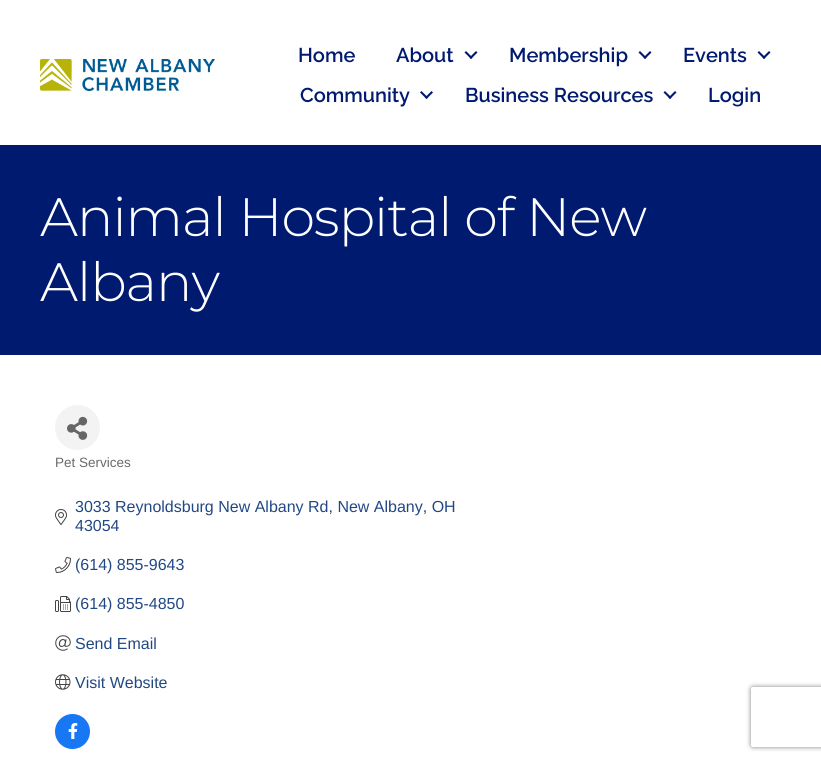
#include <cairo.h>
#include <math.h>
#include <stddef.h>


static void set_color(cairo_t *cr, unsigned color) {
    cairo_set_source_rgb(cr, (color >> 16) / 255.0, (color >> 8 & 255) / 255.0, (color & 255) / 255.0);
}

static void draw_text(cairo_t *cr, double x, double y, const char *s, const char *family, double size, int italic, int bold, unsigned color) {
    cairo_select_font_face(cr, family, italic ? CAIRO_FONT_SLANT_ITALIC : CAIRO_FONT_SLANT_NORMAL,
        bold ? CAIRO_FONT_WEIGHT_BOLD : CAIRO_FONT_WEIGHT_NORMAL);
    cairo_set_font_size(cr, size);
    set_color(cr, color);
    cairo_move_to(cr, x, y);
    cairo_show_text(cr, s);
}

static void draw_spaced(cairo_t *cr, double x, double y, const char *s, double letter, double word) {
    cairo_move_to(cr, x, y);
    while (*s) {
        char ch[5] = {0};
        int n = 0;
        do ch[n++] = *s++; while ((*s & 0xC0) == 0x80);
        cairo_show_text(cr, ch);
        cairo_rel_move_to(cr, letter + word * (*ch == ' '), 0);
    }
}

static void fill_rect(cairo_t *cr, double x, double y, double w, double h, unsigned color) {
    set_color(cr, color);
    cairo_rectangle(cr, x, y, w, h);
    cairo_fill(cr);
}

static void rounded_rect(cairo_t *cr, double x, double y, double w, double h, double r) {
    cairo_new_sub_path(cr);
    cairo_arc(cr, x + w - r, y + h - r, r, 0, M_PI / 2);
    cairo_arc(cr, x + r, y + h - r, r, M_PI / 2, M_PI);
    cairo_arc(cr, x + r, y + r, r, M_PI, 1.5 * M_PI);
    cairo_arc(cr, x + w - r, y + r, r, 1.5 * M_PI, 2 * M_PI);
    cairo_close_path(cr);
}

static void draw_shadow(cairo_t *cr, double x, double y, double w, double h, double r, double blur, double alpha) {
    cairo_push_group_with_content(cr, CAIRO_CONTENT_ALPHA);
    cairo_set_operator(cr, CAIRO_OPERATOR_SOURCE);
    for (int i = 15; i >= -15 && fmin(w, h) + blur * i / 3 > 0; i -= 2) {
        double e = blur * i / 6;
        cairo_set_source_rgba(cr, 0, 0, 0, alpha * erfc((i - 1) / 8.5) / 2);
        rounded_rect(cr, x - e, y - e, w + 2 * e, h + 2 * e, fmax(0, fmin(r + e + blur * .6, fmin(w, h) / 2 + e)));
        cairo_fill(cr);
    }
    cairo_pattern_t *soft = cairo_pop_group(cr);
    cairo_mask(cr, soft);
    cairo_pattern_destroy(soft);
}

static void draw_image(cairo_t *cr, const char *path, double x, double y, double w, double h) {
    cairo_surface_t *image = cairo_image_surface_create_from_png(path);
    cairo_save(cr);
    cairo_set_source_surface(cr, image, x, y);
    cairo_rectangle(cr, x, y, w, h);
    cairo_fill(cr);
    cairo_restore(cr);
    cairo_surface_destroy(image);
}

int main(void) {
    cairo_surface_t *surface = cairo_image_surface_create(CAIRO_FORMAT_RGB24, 821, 761);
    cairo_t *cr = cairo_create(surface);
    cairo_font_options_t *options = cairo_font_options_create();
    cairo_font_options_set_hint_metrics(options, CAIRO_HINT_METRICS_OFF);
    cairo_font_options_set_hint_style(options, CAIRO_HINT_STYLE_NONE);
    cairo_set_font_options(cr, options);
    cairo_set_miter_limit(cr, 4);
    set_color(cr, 0xFFFFFF);
    cairo_paint(cr);
    draw_image(cr, "assets/img1.png", 40, 59, 175, 32);
    draw_text(cr, 298, 62, "Home", "Raleway Thin", 20, 0, 0, 0x001A70);
    draw_text(cr, 396, 62, "About", "Raleway Thin", 20, 0, 0, 0x001A70);
    cairo_new_path(cr);
    cairo_move_to(cr, 476, 51);
    cairo_line_to(cr, 477.5, 52.5);
    cairo_line_to(cr, 471, 59);
    cairo_line_to(cr, 469.5, 57.5);
    cairo_close_path(cr);
    cairo_fill(cr);
    cairo_new_path(cr);
    cairo_move_to(cr, 466, 51);
    cairo_line_to(cr, 472.5, 57.5);
    cairo_line_to(cr, 471, 59);
    cairo_line_to(cr, 464.5, 52.5);
    cairo_close_path(cr);
    cairo_fill(cr);
    draw_text(cr, 509, 62, "Membership", "Raleway Thin", 20, 0, 0, 0x001A70);
    cairo_new_path(cr);
    cairo_move_to(cr, 650, 51);
    cairo_line_to(cr, 651.5, 52.5);
    cairo_line_to(cr, 645, 59);
    cairo_line_to(cr, 643.5, 57.5);
    cairo_close_path(cr);
    cairo_fill(cr);
    cairo_new_path(cr);
    cairo_move_to(cr, 640, 51);
    cairo_line_to(cr, 646.5, 57.5);
    cairo_line_to(cr, 645, 59);
    cairo_line_to(cr, 638.5, 52.5);
    cairo_close_path(cr);
    cairo_fill(cr);
    draw_text(cr, 683, 62, "Events", "Raleway Thin", 20, 0, 0, 0x001A70);
    cairo_new_path(cr);
    cairo_move_to(cr, 769, 51);
    cairo_line_to(cr, 770.5, 52.5);
    cairo_line_to(cr, 764, 59);
    cairo_line_to(cr, 762.5, 57.5);
    cairo_close_path(cr);
    cairo_fill(cr);
    cairo_new_path(cr);
    cairo_move_to(cr, 759, 51);
    cairo_line_to(cr, 765.5, 57.5);
    cairo_line_to(cr, 764, 59);
    cairo_line_to(cr, 757.5, 52.5);
    cairo_close_path(cr);
    cairo_fill(cr);
    draw_text(cr, 300, 102, "Community", "Raleway Thin", 20, 0, 0, 0x001A70);
    cairo_new_path(cr);
    cairo_move_to(cr, 431.5, 91);
    cairo_line_to(cr, 433, 92.5);
    cairo_line_to(cr, 426.5, 99);
    cairo_line_to(cr, 425, 97.5);
    cairo_close_path(cr);
    cairo_fill(cr);
    cairo_new_path(cr);
    cairo_move_to(cr, 421.5, 91);
    cairo_line_to(cr, 428, 97.5);
    cairo_line_to(cr, 426.5, 99);
    cairo_line_to(cr, 420, 92.5);
    cairo_close_path(cr);
    cairo_fill(cr);
    draw_text(cr, 465, 102, "Business Resources", "Raleway Thin", 20, 0, 0, 0x001A70);
    cairo_new_path(cr);
    cairo_move_to(cr, 675, 91);
    cairo_line_to(cr, 676.5, 92.5);
    cairo_line_to(cr, 670, 99);
    cairo_line_to(cr, 668.5, 97.5);
    cairo_close_path(cr);
    cairo_fill(cr);
    cairo_new_path(cr);
    cairo_move_to(cr, 665, 91);
    cairo_line_to(cr, 671.5, 97.5);
    cairo_line_to(cr, 670, 99);
    cairo_line_to(cr, 663.5, 92.5);
    cairo_close_path(cr);
    cairo_fill(cr);
    draw_text(cr, 708, 102, "Login", "Raleway Thin", 20, 0, 0, 0x001A70);
    fill_rect(cr, 0, 145, 821, 210, 0x001A70);
    cairo_select_font_face(cr, "Montserrat Light", CAIRO_FONT_SLANT_NORMAL, CAIRO_FONT_WEIGHT_NORMAL);
    cairo_set_font_size(cr, 54);
    set_color(cr, 0xFFFFFF);
    draw_spaced(cr, 40, 236, "Animal Hospital of New", -1, 0);
    draw_spaced(cr, 40, 301, "Albany", -1, 0);
    set_color(cr, 0xF3F3F3);
    cairo_new_path(cr);
    cairo_arc(cr, 77.5, 427.5, 22.5, 0, 2 * M_PI);
    cairo_fill(cr);
    draw_image(cr, "assets/img2.png", 67, 416, 21, 24);
    draw_text(cr, 55, 467, "Pet Services", "Liberation Sans", 13.5, 0, 0, 0x696969);
    draw_image(cr, "assets/img3.png", 55, 509, 12, 16);
    draw_text(cr, 75, 512, "3033 Reynoldsburg New Albany Rd, New Albany, OH", "Liberation Sans", 16, 0, 0, 0x224884);
    draw_text(cr, 75, 531, "43054", "Liberation Sans", 16, 0, 0, 0x224884);
    draw_image(cr, "assets/img4.png", 55, 557, 16, 16);
    draw_text(cr, 75, 570, "(614) 855-9643", "Liberation Sans", 16, 0, 0, 0x224884);
    draw_image(cr, "assets/img5.png", 55, 596, 16, 16);
    draw_text(cr, 75, 609, "(614) 855-4850", "Liberation Sans", 16, 0, 0, 0x224884);
    draw_image(cr, "assets/img6.png", 55, 635, 16, 16);
    draw_text(cr, 75, 649, "Send Email", "Liberation Sans", 16, 0, 0, 0x224884);
    draw_image(cr, "assets/img7.png", 55, 674, 16, 16);
    draw_text(cr, 75, 688, "Visit Website", "Liberation Sans", 16, 0, 0, 0x224884);
    set_color(cr, 0x1877F2);
    cairo_new_path(cr);
    cairo_arc(cr, 72.5, 731.5, 17.5, 0, 2 * M_PI);
    cairo_fill(cr);
    draw_image(cr, "assets/img8.png", 68, 723, 10, 16);
    cairo_save(cr);
    cairo_set_fill_rule(cr, CAIRO_FILL_RULE_EVEN_ODD);
    cairo_new_path(cr);
    cairo_move_to(cr, 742, 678);
    cairo_line_to(cr, 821, 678);
    cairo_line_to(cr, 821, 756);
    cairo_line_to(cr, 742, 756);
    cairo_close_path(cr);
    cairo_move_to(cr, 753, 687);
    cairo_line_to(cr, 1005, 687);
    cairo_curve_to(cr, 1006, 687, 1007, 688, 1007, 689);
    cairo_line_to(cr, 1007, 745);
    cairo_curve_to(cr, 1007, 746, 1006, 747, 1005, 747);
    cairo_line_to(cr, 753, 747);
    cairo_curve_to(cr, 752, 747, 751, 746, 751, 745);
    cairo_line_to(cr, 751, 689);
    cairo_curve_to(cr, 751, 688, 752, 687, 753, 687);
    cairo_close_path(cr);
    cairo_clip(cr);
    set_color(cr, 0x808080);
    draw_shadow(cr, 751, 687, 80, 60, 2, 2.5, 1);
    cairo_restore(cr);
    cairo_surface_write_to_png(surface, "output.png");
    cairo_font_options_destroy(options);
    cairo_destroy(cr);
    cairo_surface_destroy(surface);
    return 0;
}
